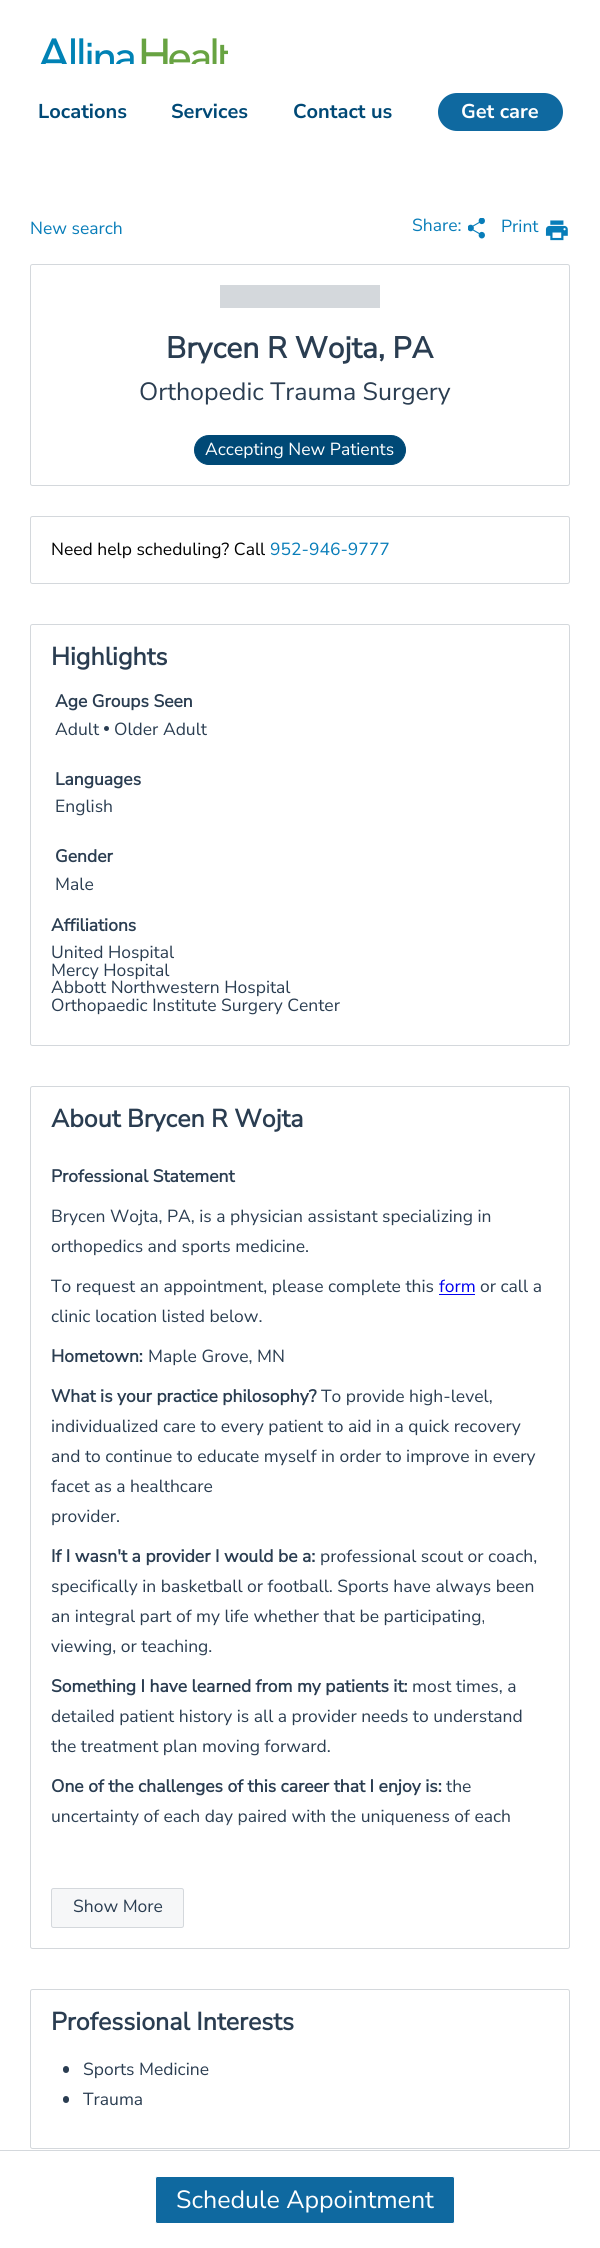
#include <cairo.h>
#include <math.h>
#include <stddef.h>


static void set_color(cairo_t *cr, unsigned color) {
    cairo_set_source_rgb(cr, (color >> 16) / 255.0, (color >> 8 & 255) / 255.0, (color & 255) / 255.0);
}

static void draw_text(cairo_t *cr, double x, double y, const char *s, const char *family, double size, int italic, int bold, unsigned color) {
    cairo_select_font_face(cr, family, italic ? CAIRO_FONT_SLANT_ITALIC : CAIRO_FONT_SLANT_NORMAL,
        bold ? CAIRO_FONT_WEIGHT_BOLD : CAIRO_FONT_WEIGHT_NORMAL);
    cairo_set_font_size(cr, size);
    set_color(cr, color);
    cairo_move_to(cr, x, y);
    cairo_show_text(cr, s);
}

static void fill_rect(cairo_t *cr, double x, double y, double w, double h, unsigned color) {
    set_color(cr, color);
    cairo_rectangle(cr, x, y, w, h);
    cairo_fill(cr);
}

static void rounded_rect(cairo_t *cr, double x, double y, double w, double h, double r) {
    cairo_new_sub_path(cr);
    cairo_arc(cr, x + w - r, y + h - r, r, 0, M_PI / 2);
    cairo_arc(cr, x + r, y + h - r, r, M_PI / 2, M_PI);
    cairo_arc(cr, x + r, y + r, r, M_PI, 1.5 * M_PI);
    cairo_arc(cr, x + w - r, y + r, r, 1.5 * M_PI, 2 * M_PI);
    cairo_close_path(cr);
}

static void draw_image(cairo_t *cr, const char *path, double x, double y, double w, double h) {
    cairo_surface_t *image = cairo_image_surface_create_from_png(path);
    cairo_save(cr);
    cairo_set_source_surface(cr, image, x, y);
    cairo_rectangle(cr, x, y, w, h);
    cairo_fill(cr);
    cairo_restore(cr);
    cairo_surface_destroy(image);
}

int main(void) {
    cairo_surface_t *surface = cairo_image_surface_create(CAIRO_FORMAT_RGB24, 600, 2248);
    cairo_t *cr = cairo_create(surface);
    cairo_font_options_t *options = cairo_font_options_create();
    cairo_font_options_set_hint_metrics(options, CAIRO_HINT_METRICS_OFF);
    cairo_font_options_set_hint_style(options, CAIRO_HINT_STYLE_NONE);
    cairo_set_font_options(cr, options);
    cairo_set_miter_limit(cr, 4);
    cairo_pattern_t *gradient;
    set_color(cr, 0xFFFFFF);
    cairo_paint(cr);
    draw_image(cr, "assets/img1.png", 40, 38, 188, 26);
    draw_text(cr, 38, 118, "Locations", "Nunito Sans", 20, 0, 1, 0x004976);
    draw_text(cr, 171, 118, "Services", "Nunito Sans", 20, 0, 1, 0x004976);
    draw_text(cr, 293, 118, "Contact us", "Nunito Sans", 20, 0, 1, 0x004976);
    set_color(cr, 0x0F69A0);
    rounded_rect(cr, 438, 93, 125, 38, 19);
    cairo_fill(cr);
    draw_text(cr, 461, 118, "Get care", "Nunito Sans", 20, 0, 1, 0xFFFFFF);
    draw_text(cr, 30, 234, "New search", "Nunito Sans", 17.5, 0, 0, 0x087DB9);
    draw_text(cr, 412, 231, "Share:", "Nunito Sans", 17.5, 0, 0, 0x087DB9);
    draw_image(cr, "assets/img2.png", 468, 218, 17, 21);
    draw_text(cr, 501, 232, "Print", "Nunito Sans", 17.5, 0, 0, 0x087DB9);
    draw_image(cr, "assets/img3.png", 545, 220, 23, 21);
    rounded_rect(cr, 30.5, 264.5, 539, 221, 2);
    set_color(cr, 0xD4D8DC);
    cairo_set_line_width(cr, 1);
    cairo_stroke(cr);
    fill_rect(cr, 220, 285, 160, 23, 0xD4D8DC);
    draw_text(cr, 166, 358, "Brycen R Wojta, PA", "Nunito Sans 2", 30, 0, 1, 0x2A3D51);
    draw_text(cr, 139, 400, "Orthopedic Trauma Surgery", "Nunito Sans", 25, 0, 0, 0x2A3D51);
    set_color(cr, 0x004976);
    rounded_rect(cr, 194.5, 435.5, 211, 29, 14.5);
    cairo_fill_preserve(cr);
    cairo_stroke(cr);
    draw_text(cr, 205, 455, "Accepting New Patients", "Nunito Sans", 17.5, 0, 0, 0xFFFFFF);
    rounded_rect(cr, 30.5, 516.5, 539, 67, 2);
    set_color(cr, 0xD4D8DC);
    cairo_stroke(cr);
    draw_text(cr, 51, 555, "Need help scheduling? Call", "Nunito Sans", 17.5, 0, 0, 0x000000);
    draw_text(cr, 270, 555, "952-946-9777", "Nunito Sans", 17.5, 0, 0, 0x087DB9);
    rounded_rect(cr, 30.5, 624.5, 539, 421, 2);
    set_color(cr, 0xD4D8DC);
    cairo_stroke(cr);
    draw_text(cr, 51, 665, "Highlights", "Nunito Sans 2", 25, 0, 1, 0x2A3D51);
    draw_text(cr, 55, 707, "Age Groups Seen", "Nunito Sans 2", 17.5, 0, 1, 0x2A3D51);
    draw_text(cr, 55, 735, "Adult", "Nunito Sans", 17.5, 0, 0, 0x2A3D51);
    cairo_new_path(cr);
    cairo_arc(cr, 106.5, 728.5, 2.5, 0, 2 * M_PI);
    cairo_fill(cr);
    draw_text(cr, 114, 735, "Older Adult", "Nunito Sans", 17.5, 0, 0, 0x2A3D51);
    draw_text(cr, 55, 785, "Languages", "Nunito Sans 2", 17.5, 0, 1, 0x2A3D51);
    draw_text(cr, 55, 812, "English", "Nunito Sans", 17.5, 0, 0, 0x2A3D51);
    draw_text(cr, 55, 862, "Gender", "Nunito Sans 2", 17.5, 0, 1, 0x2A3D51);
    draw_text(cr, 55, 890, "Male", "Nunito Sans", 17.5, 0, 0, 0x2A3D51);
    draw_text(cr, 51, 931, "Affiliations", "Nunito Sans 2", 17.5, 0, 1, 0x2A3D51);
    draw_text(cr, 51, 958, "United Hospital", "Nunito Sans", 17.5, 0, 0, 0x2A3D51);
    draw_text(cr, 51, 976, "Mercy Hospital", "Nunito Sans", 17.5, 0, 0, 0x2A3D51);
    draw_text(cr, 51, 993, "Abbott Northwestern Hospital", "Nunito Sans", 17.5, 0, 0, 0x2A3D51);
    draw_text(cr, 51, 1011, "Orthopaedic Institute Surgery Center", "Nunito Sans", 17.5, 0, 0, 0x2A3D51);
    rounded_rect(cr, 30.5, 1086.5, 539, 862, 2);
    set_color(cr, 0xD4D8DC);
    cairo_stroke(cr);
    draw_text(cr, 51, 1127, "About Brycen R Wojta", "Nunito Sans 2", 25, 0, 1, 0x2A3D51);
    draw_text(cr, 51, 1182, "Professional Statement", "Nunito Sans 2", 17.5, 0, 1, 0x2A3D51);
    draw_text(cr, 51, 1222, "Brycen Wojta, PA, is a physician assistant specializing in", "Nunito Sans", 17.5, 0, 0, 0x2A3D51);
    draw_text(cr, 51, 1252, "orthopedics and sports medicine.", "Nunito Sans", 17.5, 0, 0, 0x2A3D51);
    draw_text(cr, 51, 1292, "To request an appointment, please complete this", "Nunito Sans", 17.5, 0, 0, 0x2A3D51);
    draw_text(cr, 439, 1292, "form", "Nunito Sans", 17.5, 0, 0, 0x0000EE);
    fill_rect(cr, 439, 1294, 36, 1, 0x0000EE);
    draw_text(cr, 480, 1292, "or call a", "Nunito Sans", 17.5, 0, 0, 0x2A3D51);
    draw_text(cr, 51, 1322, "clinic location listed below.", "Nunito Sans", 17.5, 0, 0, 0x2A3D51);
    draw_text(cr, 51, 1362, "Hometown:", "Nunito Sans 2", 17.5, 0, 1, 0x2A3D51);
    draw_text(cr, 148, 1362, "Maple Grove, MN", "Nunito Sans", 17.5, 0, 0, 0x2A3D51);
    draw_text(cr, 51, 1402, "What is your practice philosophy?", "Nunito Sans 2", 17.5, 0, 1, 0x2A3D51);
    draw_text(cr, 321, 1402, "To provide high-level,", "Nunito Sans", 17.5, 0, 0, 0x2A3D51);
    draw_text(cr, 51, 1432, "individualized care to every patient to aid in a quick recovery", "Nunito Sans", 17.5, 0, 0, 0x2A3D51);
    draw_text(cr, 51, 1462, "and to continue to educate myself in order to improve in every", "Nunito Sans", 17.5, 0, 0, 0x2A3D51);
    draw_text(cr, 51, 1492, "facet as a healthcare", "Nunito Sans", 17.5, 0, 0, 0x2A3D51);
    draw_text(cr, 51, 1522, "provider.", "Nunito Sans", 17.5, 0, 0, 0x2A3D51);
    draw_text(cr, 51, 1562, "If I wasn't a provider I would be a:", "Nunito Sans 2", 17.5, 0, 1, 0x2A3D51);
    draw_text(cr, 320, 1562, "professional scout or coach,", "Nunito Sans", 17.5, 0, 0, 0x2A3D51);
    draw_text(cr, 51, 1592, "specifically in basketball or football. Sports have always been", "Nunito Sans", 17.5, 0, 0, 0x2A3D51);
    draw_text(cr, 51, 1622, "an integral part of my life whether that be participating,", "Nunito Sans", 17.5, 0, 0, 0x2A3D51);
    draw_text(cr, 51, 1652, "viewing, or teaching.", "Nunito Sans", 17.5, 0, 0, 0x2A3D51);
    draw_text(cr, 51, 1692, "Something I have learned from my patients it:", "Nunito Sans 2", 17.5, 0, 1, 0x2A3D51);
    draw_text(cr, 412, 1692, "most times, a", "Nunito Sans", 17.5, 0, 0, 0x2A3D51);
    draw_text(cr, 51, 1722, "detailed patient history is all a provider needs to understand", "Nunito Sans", 17.5, 0, 0, 0x2A3D51);
    draw_text(cr, 51, 1752, "the treatment plan moving forward.", "Nunito Sans", 17.5, 0, 0, 0x2A3D51);
    draw_text(cr, 51, 1792, "One of the challenges of this career that I enjoy is:", "Nunito Sans 2", 17.5, 0, 1, 0x2A3D51);
    draw_text(cr, 446, 1792, "the", "Nunito Sans", 17.5, 0, 0, 0x2A3D51);
    draw_text(cr, 51, 1822, "uncertainty of each day paired with the uniqueness of each", "Nunito Sans", 17.5, 0, 0, 0x2A3D51);
    gradient = cairo_pattern_create_linear(300, 1820, 300, 1858);
    cairo_pattern_add_color_stop_rgba(gradient, 0, 1, 1, 1, 0);
    cairo_pattern_add_color_stop_rgba(gradient, 1, 1, 1, 1, 1);
    cairo_set_source(cr, gradient);
    cairo_pattern_destroy(gradient);
    cairo_rectangle(cr, 53, 1821, 457, 5);
    cairo_fill(cr);
    set_color(cr, 0xF6F7F8);
    rounded_rect(cr, 51.5, 1888.5, 132, 39, 2);
    cairo_fill_preserve(cr);
    set_color(cr, 0xD4D8DC);
    cairo_stroke(cr);
    draw_text(cr, 73, 1912, "Show More", "Nunito Sans", 17.5, 0, 0, 0x2A3D51);
    rounded_rect(cr, 30.5, 1989.5, 539, 159, 2);
    set_color(cr, 0xD4D8DC);
    cairo_stroke(cr);
    draw_text(cr, 51, 2030, "Professional Interests", "Nunito Sans 2", 25, 0, 1, 0x2A3D51);
    rounded_rect(cr, 63, 2066, 6, 7, 3);
    cairo_fill(cr);
    draw_text(cr, 83, 2075, "Sports Medicine", "Nunito Sans", 17.5, 0, 0, 0x2A3D51);
    rounded_rect(cr, 63, 2096, 6, 7, 3);
    cairo_fill(cr);
    draw_text(cr, 83, 2105, "Trauma", "Nunito Sans", 17.5, 0, 0, 0x2A3D51);
    fill_rect(cr, 0, 2150, 600, 1, 0xD4D8DC);
    set_color(cr, 0x0F69A0);
    rounded_rect(cr, 155.5, 2176.5, 299, 47, 2);
    cairo_fill_preserve(cr);
    set_color(cr, 0xFFFFFF);
    cairo_stroke(cr);
    draw_text(cr, 176, 2208, "Schedule Appointment", "Nunito Sans", 25, 0, 0, 0xFFFFFF);
    cairo_surface_write_to_png(surface, "output.png");
    cairo_font_options_destroy(options);
    cairo_destroy(cr);
    cairo_surface_destroy(surface);
    return 0;
}
